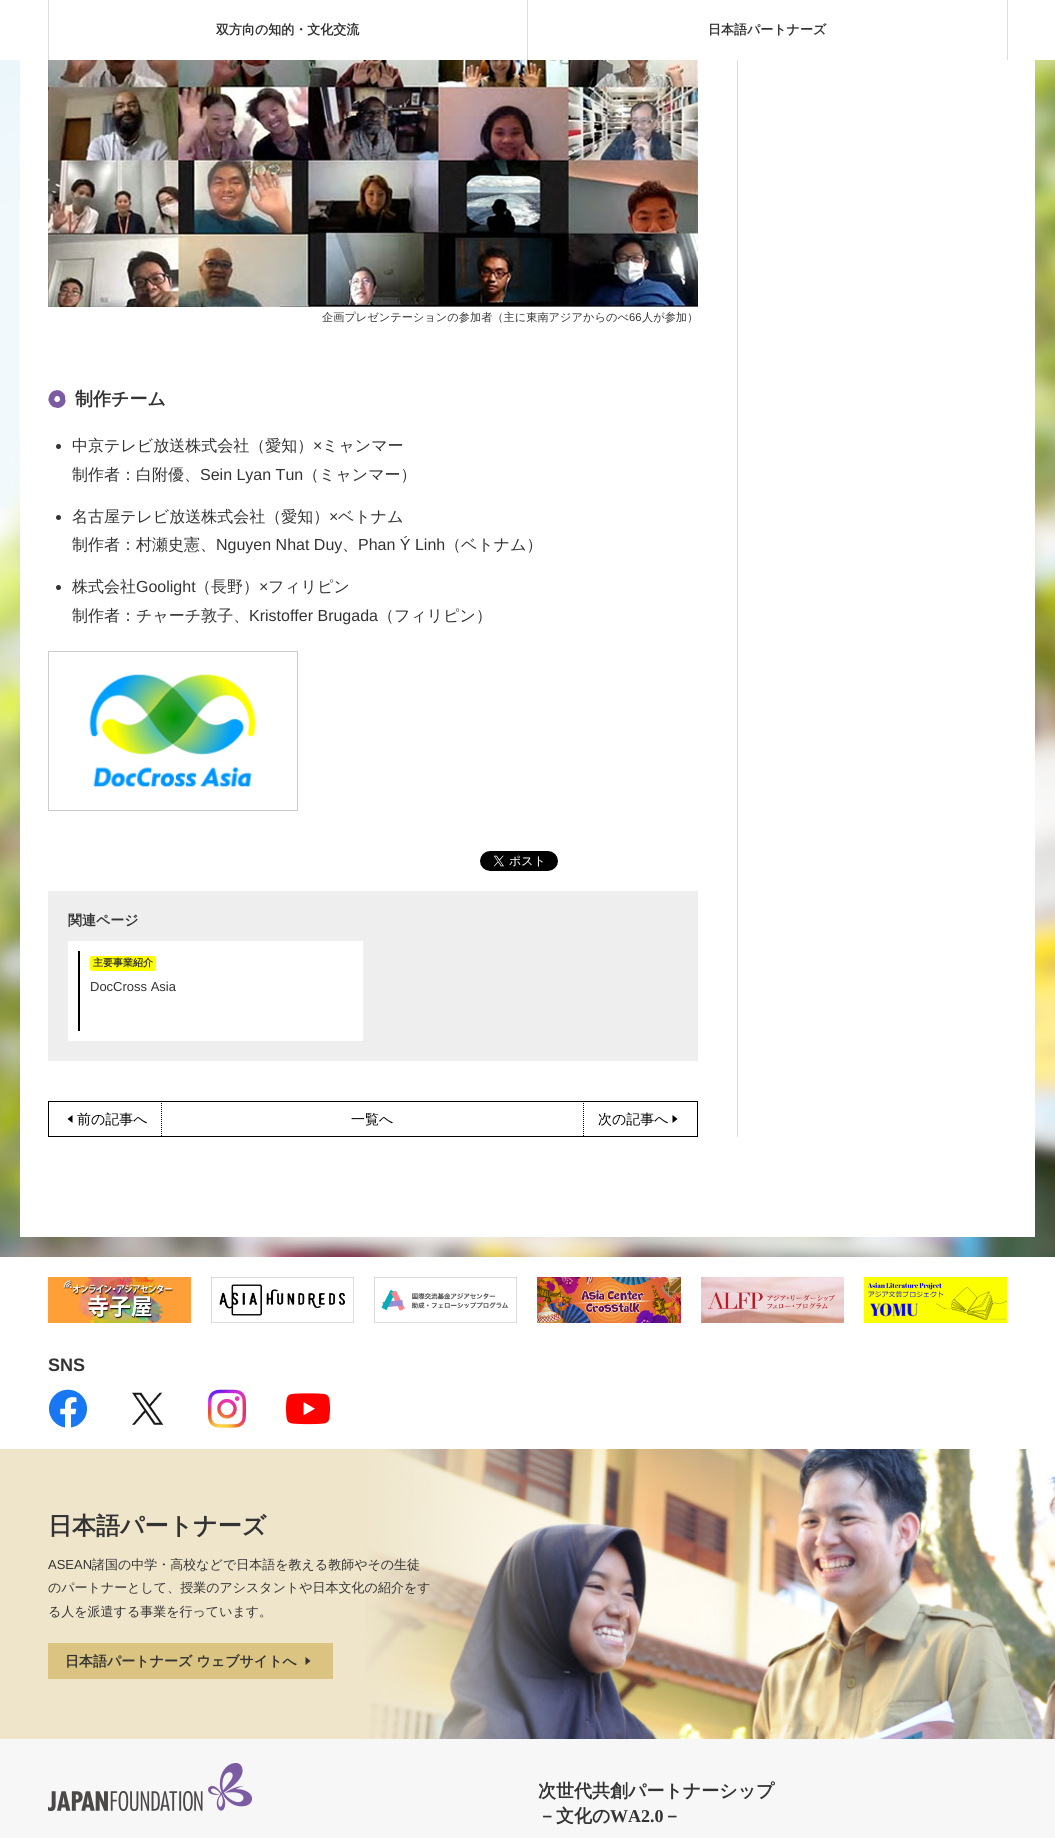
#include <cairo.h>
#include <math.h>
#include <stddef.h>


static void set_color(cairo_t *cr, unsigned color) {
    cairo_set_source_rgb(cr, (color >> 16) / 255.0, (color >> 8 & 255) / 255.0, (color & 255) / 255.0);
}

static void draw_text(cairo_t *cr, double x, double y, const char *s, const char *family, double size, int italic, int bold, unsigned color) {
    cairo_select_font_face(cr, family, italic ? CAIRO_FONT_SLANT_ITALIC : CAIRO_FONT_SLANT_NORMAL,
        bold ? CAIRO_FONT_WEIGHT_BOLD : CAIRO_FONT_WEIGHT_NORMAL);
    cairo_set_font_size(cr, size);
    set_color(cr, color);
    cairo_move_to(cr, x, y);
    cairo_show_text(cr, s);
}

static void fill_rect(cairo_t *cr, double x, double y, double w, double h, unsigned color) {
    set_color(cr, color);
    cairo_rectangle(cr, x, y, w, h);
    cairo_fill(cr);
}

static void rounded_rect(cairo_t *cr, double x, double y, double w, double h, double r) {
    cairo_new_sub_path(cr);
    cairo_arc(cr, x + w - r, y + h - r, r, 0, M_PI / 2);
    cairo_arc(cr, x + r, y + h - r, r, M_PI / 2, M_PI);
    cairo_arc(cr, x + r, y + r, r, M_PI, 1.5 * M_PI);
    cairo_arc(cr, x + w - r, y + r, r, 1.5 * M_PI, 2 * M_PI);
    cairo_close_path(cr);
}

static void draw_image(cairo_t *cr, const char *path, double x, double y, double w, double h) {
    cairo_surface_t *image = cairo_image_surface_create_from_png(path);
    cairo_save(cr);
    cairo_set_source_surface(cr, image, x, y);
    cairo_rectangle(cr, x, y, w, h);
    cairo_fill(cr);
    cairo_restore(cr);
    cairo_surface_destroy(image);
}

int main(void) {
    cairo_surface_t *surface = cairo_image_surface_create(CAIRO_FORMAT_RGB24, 1055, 1838);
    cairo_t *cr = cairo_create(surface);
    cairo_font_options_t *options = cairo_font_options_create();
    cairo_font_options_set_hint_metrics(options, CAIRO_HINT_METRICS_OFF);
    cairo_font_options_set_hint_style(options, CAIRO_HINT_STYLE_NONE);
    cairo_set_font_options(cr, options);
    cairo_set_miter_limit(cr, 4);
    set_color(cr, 0xFFFFFF);
    cairo_paint(cr);
    draw_image(cr, "assets/img1.png", 0, 60, 1055, 1197);
    fill_rect(cr, 48, 0, 1, 60, 0xDDDDDD);
    fill_rect(cr, 527, 0, 1, 60, 0xDDDDDD);
    draw_text(cr, 216, 34, "双方向の知的・文化交流", "WenQuanYi Zen Hei", 13, 0, 1, 0x333333);
    fill_rect(cr, 1007, 0, 1, 60, 0xDDDDDD);
    draw_text(cr, 708, 34, "日本語パートナーズ", "WenQuanYi Zen Hei", 13, 0, 1, 0x333333);
    fill_rect(cr, 20, 60, 1015, 1177, 0xFFFFFF);
    fill_rect(cr, 737, 60, 1, 1077, 0xDDDDDD);
    draw_image(cr, "assets/img2.png", 48, 60, 650, 247);
    draw_text(cr, 322, 321, "企画プレゼンテーションの参加者（主に東南アジアからのべ", "WenQuanYi Zen Hei Medium", 11.2, 0, 0, 0x333333);
    draw_text(cr, 629, 321, "66", "Liberation Sans", 11.2, 0, 0, 0x333333);
    draw_text(cr, 642, 321, "人が参加）", "WenQuanYi Zen Hei Medium", 11.2, 0, 0, 0x333333);
    draw_image(cr, "assets/img3.png", 48, 390, 18, 18);
    draw_text(cr, 75, 405, "制作チーム", "WenQuanYi Zen Hei", 18, 0, 1, 0x333333);
    cairo_new_path(cr);
    cairo_arc(cr, 58.5, 446.5, 2.5, 0, 2 * M_PI);
    cairo_fill(cr);
    draw_text(cr, 72, 451, "中京テレビ放送株式会社（愛知）", "WenQuanYi Zen Hei Medium", 16, 0, 0, 0x333333);
    draw_text(cr, 313, 451, "×", "Liberation Sans", 16, 0, 0, 0x333333);
    draw_text(cr, 322, 451, "ミャンマー", "WenQuanYi Zen Hei Medium", 16, 0, 0, 0x333333);
    draw_text(cr, 72, 480, "制作者：白附優、", "WenQuanYi Zen Hei Medium", 16, 0, 0, 0x333333);
    draw_text(cr, 200, 480, "Sein Lyan Tun", "Liberation Sans", 16, 0, 0, 0x333333);
    draw_text(cr, 303, 480, "（ミャンマー）", "WenQuanYi Zen Hei Medium", 16, 0, 0, 0x333333);
    cairo_new_path(cr);
    cairo_arc(cr, 58.5, 517.5, 2.5, 0, 2 * M_PI);
    cairo_fill(cr);
    draw_text(cr, 72, 522, "名古屋テレビ放送株式会社（愛知）", "WenQuanYi Zen Hei Medium", 16, 0, 0, 0x333333);
    draw_text(cr, 329, 522, "×", "Liberation Sans", 16, 0, 0, 0x333333);
    draw_text(cr, 338, 522, "ベトナム", "WenQuanYi Zen Hei Medium", 16, 0, 0, 0x333333);
    draw_text(cr, 72, 550, "制作者：村瀬史憲、", "WenQuanYi Zen Hei Medium", 16, 0, 0, 0x333333);
    draw_text(cr, 216, 550, "Nguyen Nhat Duy", "Liberation Sans", 16, 0, 0, 0x333333);
    draw_text(cr, 342, 550, "、", "WenQuanYi Zen Hei Medium", 16, 0, 0, 0x333333);
    draw_text(cr, 358, 550, "Phan Ý Linh", "Liberation Sans", 16, 0, 0, 0x333333);
    draw_text(cr, 445, 550, "（ベトナム）", "WenQuanYi Zen Hei Medium", 16, 0, 0, 0x333333);
    cairo_new_path(cr);
    cairo_arc(cr, 58.5, 587.5, 2.5, 0, 2 * M_PI);
    cairo_fill(cr);
    draw_text(cr, 72, 592, "株式会社", "WenQuanYi Zen Hei Medium", 16, 0, 0, 0x333333);
    draw_text(cr, 136, 592, "Goolight", "Liberation Sans", 16, 0, 0, 0x333333);
    draw_text(cr, 195, 592, "（長野）", "WenQuanYi Zen Hei Medium", 16, 0, 0, 0x333333);
    draw_text(cr, 259, 592, "×", "Liberation Sans", 16, 0, 0, 0x333333);
    draw_text(cr, 268, 592, "フィリピン", "WenQuanYi Zen Hei Medium", 16, 0, 0, 0x333333);
    draw_text(cr, 72, 621, "制作者：チャーチ敦子、", "WenQuanYi Zen Hei Medium", 16, 0, 0, 0x333333);
    draw_text(cr, 249, 621, "Kristoffer Brugada", "Liberation Sans", 16, 0, 0, 0x333333);
    draw_text(cr, 378, 621, "（フィリピン）", "WenQuanYi Zen Hei Medium", 16, 0, 0, 0x333333);
    cairo_rectangle(cr, 48.5, 651.5, 249, 159);
    set_color(cr, 0xCCCCCC);
    cairo_set_line_width(cr, 1);
    cairo_stroke(cr);
    draw_image(cr, "assets/img4.png", 89, 674, 167, 113);
    draw_image(cr, "assets/img5.png", 480, 851, 78, 20);
    fill_rect(cr, 48, 891, 650, 170, 0xEEEEEE);
    draw_text(cr, 68, 925, "関連ページ", "WenQuanYi Zen Hei", 14, 0, 1, 0x333333);
    fill_rect(cr, 68, 941, 295, 100, 0xFFFFFF);
    fill_rect(cr, 78, 951, 2, 80, 0x000000);
    set_color(cr, 0xFFFF00);
    rounded_rect(cr, 90, 956, 66, 15, 2);
    cairo_fill(cr);
    draw_text(cr, 93, 966, "主要事業紹介", "WenQuanYi Zen Hei", 10, 0, 1, 0x333333);
    draw_text(cr, 90, 991, "DocCross Asia", "Liberation Sans", 13, 0, 0, 0x333333);
    cairo_rectangle(cr, 48.5, 1101.5, 649, 35);
    set_color(cr, 0x000000);
    cairo_stroke(cr);
    cairo_new_path(cr);
    cairo_move_to(cr, 161.5, 1101);
    cairo_line_to(cr, 161.5, 1137);
    cairo_set_dash(cr, (double[]){1, 1}, 2, 0);
    cairo_stroke(cr);
    cairo_new_path(cr);
    cairo_move_to(cr, 72.5, 1115);
    cairo_line_to(cr, 72.5, 1123);
    cairo_line_to(cr, 67.5, 1119);
    cairo_close_path(cr);
    cairo_fill(cr);
    draw_text(cr, 77, 1124, "前の記事へ", "WenQuanYi Zen Hei Medium", 14, 0, 0, 0x000000);
    draw_text(cr, 351, 1124, "一覧へ", "WenQuanYi Zen Hei Medium", 14, 0, 0, 0x000000);
    cairo_new_path(cr);
    cairo_move_to(cr, 583.5, 1101);
    cairo_line_to(cr, 583.5, 1137);
    cairo_stroke(cr);
    draw_text(cr, 598, 1124, "次の記事へ", "WenQuanYi Zen Hei Medium", 14, 0, 0, 0x000000);
    cairo_new_path(cr);
    cairo_move_to(cr, 677.5, 1119);
    cairo_line_to(cr, 672.5, 1123);
    cairo_line_to(cr, 672.5, 1115);
    cairo_close_path(cr);
    cairo_fill(cr);
    draw_image(cr, "assets/img6.png", 48, 1277, 143, 46);
    draw_image(cr, "assets/img7.png", 211, 1277, 143, 46);
    draw_image(cr, "assets/img8.png", 374, 1277, 143, 46);
    draw_image(cr, "assets/img9.png", 537, 1277, 144, 46);
    draw_image(cr, "assets/img10.png", 701, 1277, 143, 46);
    draw_image(cr, "assets/img11.png", 864, 1277, 143, 46);
    draw_text(cr, 48, 1371, "SNS", "Liberation Sans", 18, 0, 1, 0x333333);
    draw_image(cr, "assets/img12.png", 49, 1389, 38, 39);
    draw_image(cr, "assets/img13.png", 132, 1392, 32, 33);
    draw_image(cr, "assets/img14.png", 208, 1389, 38, 39);
    draw_image(cr, "assets/img15.png", 286, 1393, 44, 32);
    fill_rect(cr, 0, 1449, 365, 290, 0xEEE5CB);
    draw_image(cr, "assets/img16.png", 365, 1449, 690, 290);
    draw_text(cr, 48, 1534, "日本語パートナーズ", "WenQuanYi Zen Hei", 24, 0, 1, 0x333333);
    draw_text(cr, 48, 1569, "ASEAN", "Liberation Sans", 13, 0, 0, 0x333333);
    draw_text(cr, 92, 1569, "諸国の中学・高校などで日本語を教える教師やその生徒", "WenQuanYi Zen Hei Medium", 13, 0, 0, 0x333333);
    draw_text(cr, 48, 1592, "のパートナーとして、授業のアシスタントや日本文化の紹介をす", "WenQuanYi Zen Hei Medium", 13, 0, 0, 0x333333);
    draw_text(cr, 48, 1616, "る人を派遣する事業を行っています。", "WenQuanYi Zen Hei Medium", 13, 0, 0, 0x333333);
    fill_rect(cr, 48, 1643, 285, 36, 0xDBC481);
    draw_text(cr, 65, 1666, "日本語パートナーズ ウェブサイトへ", "WenQuanYi Zen Hei", 14, 0, 1, 0x333333);
    cairo_new_path(cr);
    cairo_move_to(cr, 310.5, 1661);
    cairo_line_to(cr, 305.5, 1665);
    cairo_line_to(cr, 305.5, 1657);
    cairo_close_path(cr);
    cairo_fill(cr);
    fill_rect(cr, 0, 1739, 1055, 99, 0xF7F7F7);
    draw_image(cr, "assets/img17.png", 48, 1763, 204, 48);
    draw_text(cr, 538, 1797, "次世代共創パートナーシップ", "WenQuanYi Zen Hei", 18, 0, 1, 0x333333);
    draw_text(cr, 538, 1822, "－文化の", "WenQuanYi Zen Hei", 18, 0, 1, 0x333333);
    draw_text(cr, 610, 1822, "WA2.0", "Liberation Serif", 18, 0, 1, 0x333333);
    draw_text(cr, 663, 1822, "－", "WenQuanYi Zen Hei", 18, 0, 1, 0x333333);
    cairo_surface_write_to_png(surface, "output.png");
    cairo_font_options_destroy(options);
    cairo_destroy(cr);
    cairo_surface_destroy(surface);
    return 0;
}
